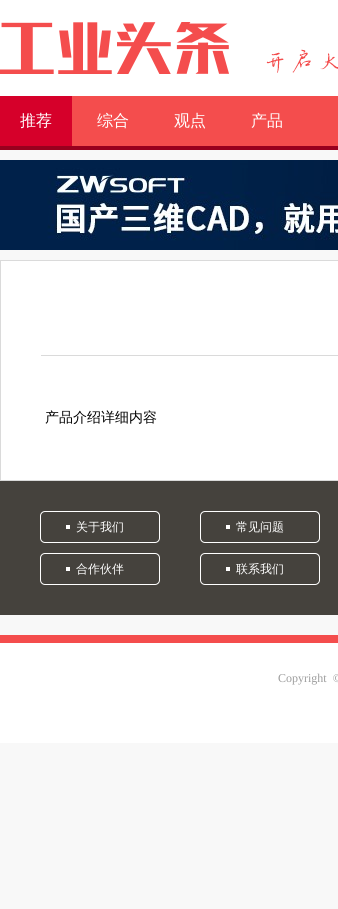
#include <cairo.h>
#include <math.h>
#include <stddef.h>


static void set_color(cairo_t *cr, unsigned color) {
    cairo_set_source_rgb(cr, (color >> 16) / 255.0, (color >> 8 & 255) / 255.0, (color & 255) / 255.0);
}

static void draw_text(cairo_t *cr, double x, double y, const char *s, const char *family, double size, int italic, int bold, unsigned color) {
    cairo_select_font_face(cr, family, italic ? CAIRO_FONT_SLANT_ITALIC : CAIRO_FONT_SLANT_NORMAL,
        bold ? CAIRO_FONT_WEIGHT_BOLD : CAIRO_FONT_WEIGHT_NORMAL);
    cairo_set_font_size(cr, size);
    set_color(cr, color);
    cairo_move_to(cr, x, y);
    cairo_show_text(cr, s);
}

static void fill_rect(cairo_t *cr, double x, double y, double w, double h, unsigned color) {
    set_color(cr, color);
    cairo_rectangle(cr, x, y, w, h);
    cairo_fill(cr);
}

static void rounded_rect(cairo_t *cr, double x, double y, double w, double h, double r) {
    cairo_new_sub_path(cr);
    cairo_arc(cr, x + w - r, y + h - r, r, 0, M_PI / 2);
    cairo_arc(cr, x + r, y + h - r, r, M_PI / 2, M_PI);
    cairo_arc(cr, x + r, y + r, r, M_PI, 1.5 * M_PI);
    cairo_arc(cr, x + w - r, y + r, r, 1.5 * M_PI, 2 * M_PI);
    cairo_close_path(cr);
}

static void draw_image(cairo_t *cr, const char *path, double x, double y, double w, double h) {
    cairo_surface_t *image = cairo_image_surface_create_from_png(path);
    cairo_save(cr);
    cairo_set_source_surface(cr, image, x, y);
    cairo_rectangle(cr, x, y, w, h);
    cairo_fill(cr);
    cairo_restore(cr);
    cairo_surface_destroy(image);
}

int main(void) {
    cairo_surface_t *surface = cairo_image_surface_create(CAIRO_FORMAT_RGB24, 338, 909);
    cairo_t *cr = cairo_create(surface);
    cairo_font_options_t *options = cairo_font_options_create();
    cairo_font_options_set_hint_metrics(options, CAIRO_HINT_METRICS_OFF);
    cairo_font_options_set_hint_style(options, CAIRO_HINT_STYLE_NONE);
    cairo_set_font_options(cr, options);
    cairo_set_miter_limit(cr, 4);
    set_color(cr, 0xF8F8F8);
    cairo_paint(cr);
    fill_rect(cr, 0, 0, 338, 96, 0xFFFFFF);
    draw_image(cr, "assets/img1.png", 0, 22, 338, 52);
    fill_rect(cr, 72, 96, 266, 50, 0xF44D4D);
    fill_rect(cr, 0, 146, 338, 4, 0x98001E);
    fill_rect(cr, 0, 96, 72, 50, 0xD6002A);
    draw_text(cr, 20, 126, "推荐", "WenQuanYi Zen Hei Medium", 16, 0, 0, 0xFFFFFF);
    draw_text(cr, 97, 126, "综合", "WenQuanYi Zen Hei Medium", 16, 0, 0, 0xFFFFFF);
    draw_text(cr, 174, 126, "观点", "WenQuanYi Zen Hei Medium", 16, 0, 0, 0xFFFFFF);
    draw_text(cr, 251, 126, "产品", "WenQuanYi Zen Hei Medium", 16, 0, 0, 0xFFFFFF);
    draw_image(cr, "assets/img2.png", 0, 160, 338, 90);
    cairo_rectangle(cr, 0.5, 260.5, 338, 220);
    cairo_fill_preserve(cr);
    set_color(cr, 0xDADADA);
    cairo_set_line_width(cr, 1);
    cairo_stroke(cr);
    fill_rect(cr, 41, 355, 297, 1, 0xDADADA);
    draw_text(cr, 45, 422, "产品介绍详细内容", "WenQuanYi Zen Hei Medium", 14, 0, 0, 0x000000);
    fill_rect(cr, 0, 481, 338, 134, 0x45423D);
    fill_rect(cr, 66, 525, 4, 4, 0xFFFFFF);
    rounded_rect(cr, 40.5, 511.5, 119, 31, 4.5);
    cairo_stroke(cr);
    draw_text(cr, 76, 531, "关于我们", "WenQuanYi Zen Hei Medium", 12, 0, 0, 0xFFFFFF);
    fill_rect(cr, 226, 525, 4, 4, 0xFFFFFF);
    rounded_rect(cr, 200.5, 511.5, 119, 31, 4.5);
    cairo_stroke(cr);
    draw_text(cr, 236, 531, "常见问题", "WenQuanYi Zen Hei Medium", 12, 0, 0, 0xFFFFFF);
    fill_rect(cr, 66, 567, 4, 4, 0xFFFFFF);
    rounded_rect(cr, 40.5, 553.5, 119, 31, 4.5);
    cairo_stroke(cr);
    draw_text(cr, 76, 573, "合作伙伴", "WenQuanYi Zen Hei Medium", 12, 0, 0, 0xFFFFFF);
    fill_rect(cr, 226, 567, 4, 4, 0xFFFFFF);
    rounded_rect(cr, 200.5, 553.5, 119, 31, 4.5);
    cairo_stroke(cr);
    draw_text(cr, 236, 573, "联系我们", "WenQuanYi Zen Hei Medium", 12, 0, 0, 0xFFFFFF);
    fill_rect(cr, 0, 643, 338, 100, 0xFFFFFF);
    fill_rect(cr, 0, 635, 338, 8, 0xF44D4D);
    draw_text(cr, 278, 682, "Copyright  ©", "Liberation Serif", 12, 0, 0, 0x9D9D9D);
    cairo_surface_write_to_png(surface, "output.png");
    cairo_font_options_destroy(options);
    cairo_destroy(cr);
    cairo_surface_destroy(surface);
    return 0;
}
